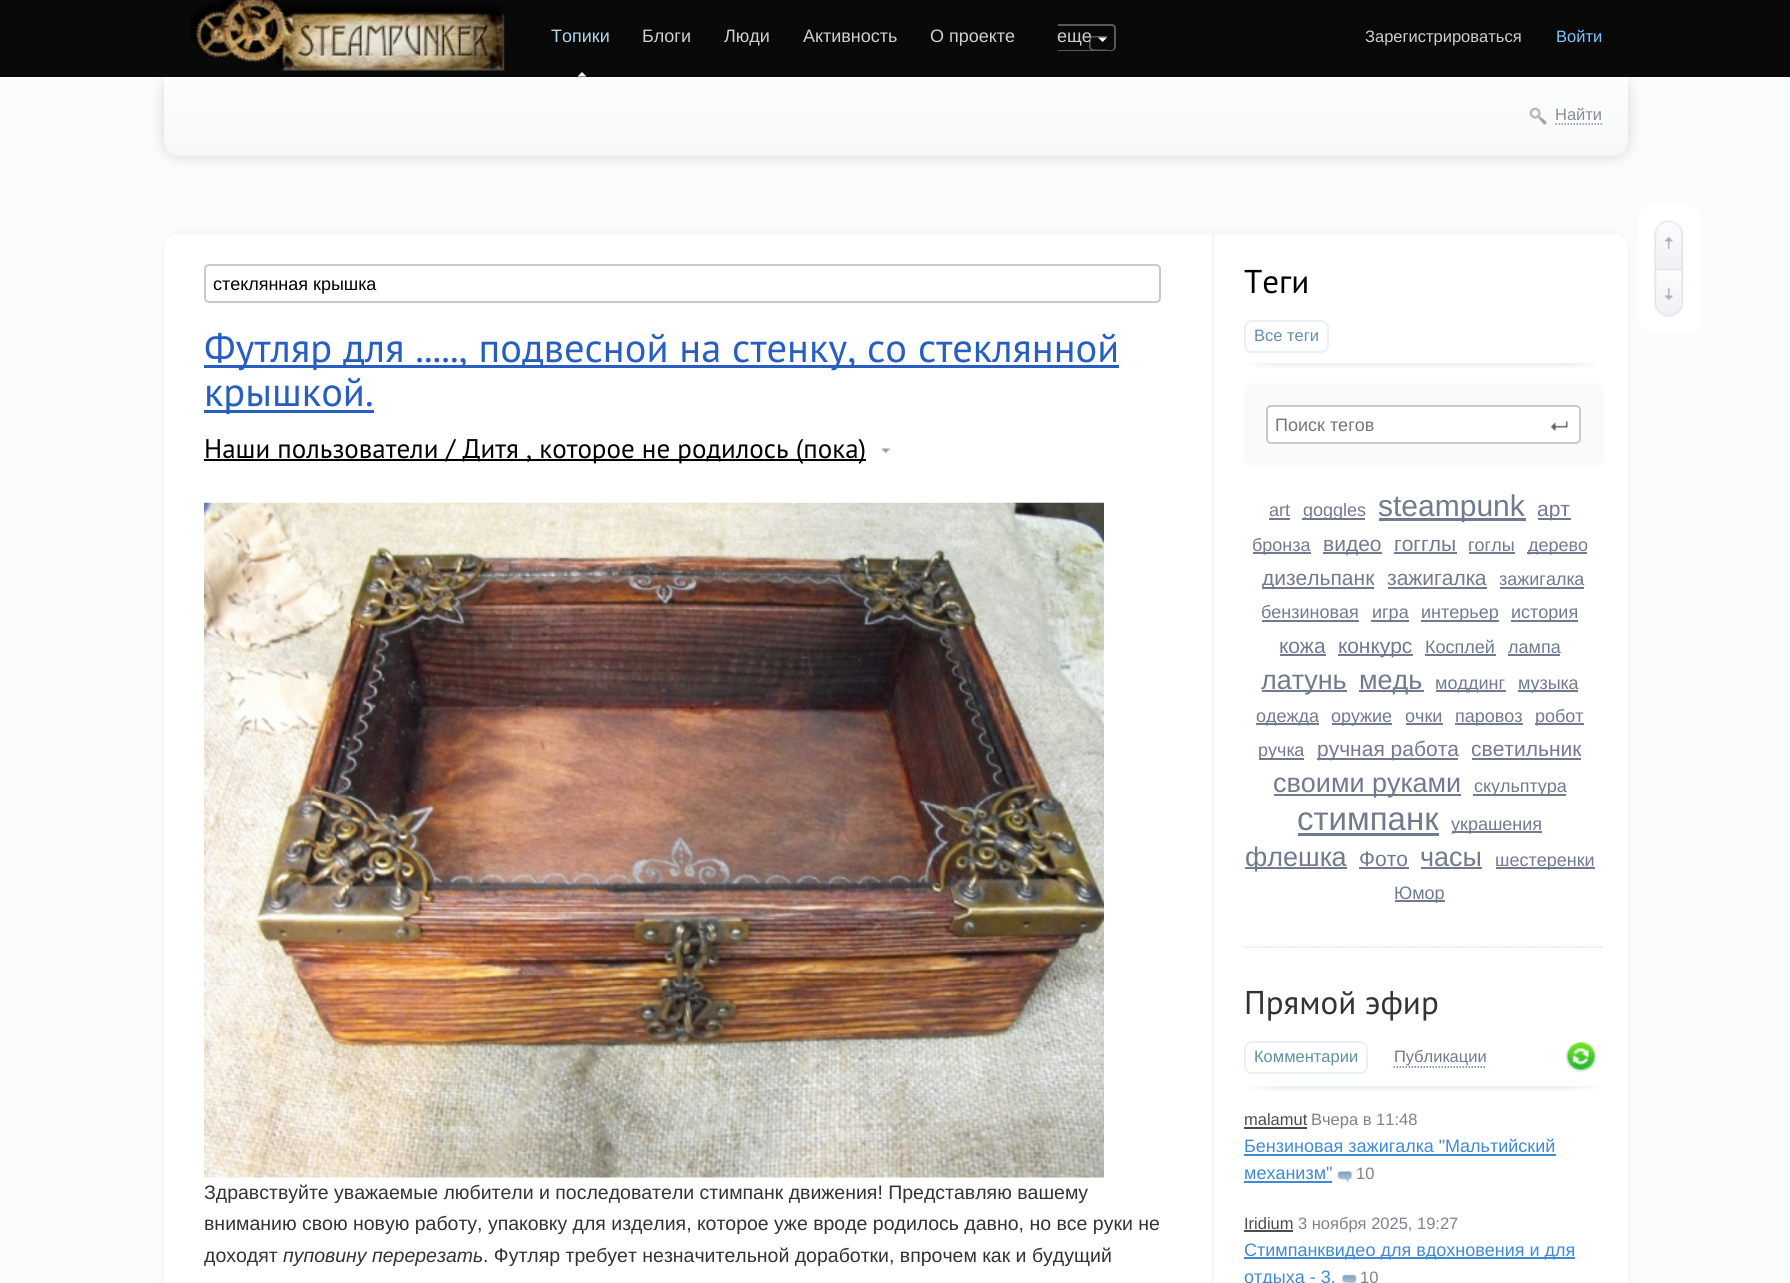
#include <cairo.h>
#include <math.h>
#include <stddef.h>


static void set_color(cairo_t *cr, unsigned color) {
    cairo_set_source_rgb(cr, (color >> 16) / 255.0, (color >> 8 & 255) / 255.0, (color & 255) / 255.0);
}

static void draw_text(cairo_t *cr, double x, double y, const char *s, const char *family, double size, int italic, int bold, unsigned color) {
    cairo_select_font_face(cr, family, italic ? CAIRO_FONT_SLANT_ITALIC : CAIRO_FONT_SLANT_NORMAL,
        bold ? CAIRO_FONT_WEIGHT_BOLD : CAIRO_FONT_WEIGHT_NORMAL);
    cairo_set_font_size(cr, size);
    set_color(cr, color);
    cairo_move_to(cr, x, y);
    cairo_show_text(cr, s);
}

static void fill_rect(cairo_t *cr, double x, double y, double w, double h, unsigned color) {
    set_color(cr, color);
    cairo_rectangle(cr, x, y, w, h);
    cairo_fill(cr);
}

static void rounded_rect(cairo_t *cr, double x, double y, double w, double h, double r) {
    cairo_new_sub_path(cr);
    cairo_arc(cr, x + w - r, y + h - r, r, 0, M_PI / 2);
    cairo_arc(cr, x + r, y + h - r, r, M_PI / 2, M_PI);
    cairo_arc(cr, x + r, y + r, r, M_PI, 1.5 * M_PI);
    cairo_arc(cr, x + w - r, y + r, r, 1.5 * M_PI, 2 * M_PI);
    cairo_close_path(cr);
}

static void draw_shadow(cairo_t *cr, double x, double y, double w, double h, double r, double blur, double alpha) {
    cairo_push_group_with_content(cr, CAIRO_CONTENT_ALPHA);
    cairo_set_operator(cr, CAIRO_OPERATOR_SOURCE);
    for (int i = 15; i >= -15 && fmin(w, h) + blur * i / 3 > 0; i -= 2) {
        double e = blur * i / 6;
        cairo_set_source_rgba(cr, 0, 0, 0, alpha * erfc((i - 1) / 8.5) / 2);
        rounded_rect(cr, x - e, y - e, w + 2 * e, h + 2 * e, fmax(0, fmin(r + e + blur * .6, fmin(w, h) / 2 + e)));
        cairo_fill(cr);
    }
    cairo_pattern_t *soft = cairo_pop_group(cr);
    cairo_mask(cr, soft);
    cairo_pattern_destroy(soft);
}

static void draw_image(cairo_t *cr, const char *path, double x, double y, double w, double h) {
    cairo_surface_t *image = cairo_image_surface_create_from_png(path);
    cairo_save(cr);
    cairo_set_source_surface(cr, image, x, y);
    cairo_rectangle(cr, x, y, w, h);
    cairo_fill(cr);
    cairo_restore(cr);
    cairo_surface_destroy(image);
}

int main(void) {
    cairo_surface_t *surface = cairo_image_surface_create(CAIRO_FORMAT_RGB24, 1790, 1283);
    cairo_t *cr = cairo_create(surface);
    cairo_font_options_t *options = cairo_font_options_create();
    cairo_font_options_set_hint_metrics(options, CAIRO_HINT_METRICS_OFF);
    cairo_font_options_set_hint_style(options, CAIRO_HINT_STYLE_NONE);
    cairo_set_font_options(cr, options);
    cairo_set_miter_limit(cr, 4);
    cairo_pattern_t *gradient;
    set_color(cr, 0xFBFCFC);
    cairo_paint(cr);
    fill_rect(cr, 0, 0, 1790, 77, 0x090909);
    draw_image(cr, "assets/img1.png", 190, 0, 315, 71);
    draw_text(cr, 551, 42, "Топики", "Liberation Sans", 18, 0, 0, 0xAED6E9);
    set_color(cr, 0xFFFFFF);
    cairo_new_path(cr);
    cairo_move_to(cr, 586.5, 76.5);
    cairo_line_to(cr, 577.5, 76.5);
    cairo_line_to(cr, 582, 72);
    cairo_close_path(cr);
    cairo_fill(cr);
    draw_text(cr, 642, 42, "Блоги", "Liberation Sans", 18, 0, 0, 0xCFCFCF);
    draw_text(cr, 724, 42, "Люди", "Liberation Sans", 18, 0, 0, 0xCFCFCF);
    draw_text(cr, 803, 42, "Активность", "Liberation Sans", 18, 0, 0, 0xCFCFCF);
    draw_text(cr, 930, 42, "О проекте", "Liberation Sans", 18, 0, 0, 0xCFCFCF);
    set_color(cr, 0x595959);
    cairo_set_fill_rule(cr, CAIRO_FILL_RULE_EVEN_ODD);
    cairo_new_path(cr);
    cairo_move_to(cr, 1093.5, 36);
    cairo_line_to(cr, 1107, 36);
    cairo_line_to(cr, 1107, 51);
    cairo_line_to(cr, 1093.5, 51);
    cairo_curve_to(cr, 1091, 51, 1089, 49, 1089, 46.5);
    cairo_line_to(cr, 1089, 40.5);
    cairo_curve_to(cr, 1089, 38, 1091, 36, 1093.5, 36);
    cairo_close_path(cr);
    cairo_move_to(cr, 1093.5, 37.5);
    cairo_line_to(cr, 1107, 37.5);
    cairo_line_to(cr, 1107, 49.5);
    cairo_line_to(cr, 1096, 49.5);
    cairo_curve_to(cr, 1090, 49.5, 1090.5, 47.5, 1090.5, 42.5);
    cairo_curve_to(cr, 1090.5, 40.5, 1090.5, 37.5, 1093.5, 37.5);
    cairo_close_path(cr);
    cairo_fill(cr);
    cairo_new_path(cr);
    cairo_move_to(cr, 1058, 24);
    cairo_line_to(cr, 1112, 24);
    cairo_curve_to(cr, 1114, 24, 1116, 26, 1116, 28);
    cairo_line_to(cr, 1116, 46);
    cairo_curve_to(cr, 1116, 49, 1114, 51, 1112, 51);
    cairo_line_to(cr, 1058, 51);
    cairo_close_path(cr);
    cairo_move_to(cr, 1058, 26);
    cairo_line_to(cr, 1112, 26);
    cairo_curve_to(cr, 1113, 26, 1114, 27, 1114, 28);
    cairo_line_to(cr, 1114, 46);
    cairo_curve_to(cr, 1114, 48, 1113, 50, 1112, 50);
    cairo_line_to(cr, 1058, 50);
    cairo_close_path(cr);
    cairo_fill(cr);
    draw_text(cr, 1057, 42, "еще", "Liberation Sans", 18, 0, 0, 0xCFCFCF);
    set_color(cr, 0xFFFFFF);
    cairo_set_fill_rule(cr, CAIRO_FILL_RULE_WINDING);
    cairo_new_path(cr);
    cairo_move_to(cr, 1098, 37.5);
    cairo_line_to(cr, 1107, 37.5);
    cairo_line_to(cr, 1102.5, 42);
    cairo_close_path(cr);
    cairo_fill(cr);
    draw_text(cr, 1365, 42, "Зарегистрироваться", "Liberation Sans", 16.5, 0, 0, 0xCFCFCF);
    draw_text(cr, 1556, 42, "Войти", "Liberation Sans", 16.5, 0, 0, 0x7DC6FF);
    set_color(cr, 0x000000);
    draw_shadow(cr, 164, 77, 1464, 79, 15, 7.5, 0.15);
    gradient = cairo_pattern_create_linear(896, 76, 896, 156);
    cairo_pattern_add_color_stop_rgba(gradient, 0, 0.992, 0.992, 0.992, 1);
    cairo_pattern_add_color_stop_rgba(gradient, 1, 0.965, 0.973, 0.976, 1);
    cairo_set_source(cr, gradient);
    cairo_pattern_destroy(gradient);
    cairo_new_path(cr);
    cairo_move_to(cr, 164, 77);
    cairo_line_to(cr, 1628, 77);
    cairo_line_to(cr, 1628, 141);
    cairo_curve_to(cr, 1628, 149.5, 1621.5, 156, 1613, 156);
    cairo_line_to(cr, 179, 156);
    cairo_curve_to(cr, 170.5, 156, 164, 149.5, 164, 141);
    cairo_close_path(cr);
    cairo_fill(cr);
    draw_image(cr, "assets/img2.png", 1529, 107, 18, 18);
    draw_text(cr, 1555, 120, "Найти", "Liberation Sans", 16.5, 0, 0, 0x878E96);
    cairo_new_path(cr);
    cairo_move_to(cr, 1555.5, 124);
    cairo_line_to(cr, 1602, 124);
    cairo_set_line_width(cr, 1.5);
    cairo_set_dash(cr, (double[]){1.5, 1.5}, 2, 0);
    cairo_stroke(cr);
    set_color(cr, 0x000000);
    draw_shadow(cr, 164, 234, 1464, 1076, 15, 4, 0.05);
    set_color(cr, 0xFFFFFF);
    rounded_rect(cr, 164, 234, 1464, 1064, 15);
    cairo_fill(cr);
    draw_image(cr, "assets/img3.png", 1212, 234, 2, 1049);
    rounded_rect(cr, 205, 265, 955, 37, 4);
    set_color(cr, 0xC9C9C9);
    cairo_set_line_width(cr, 2);
    cairo_set_dash(cr, NULL, 0, 0);
    cairo_stroke(cr);
    draw_text(cr, 213, 290, "стеклянная крышка", "Liberation Sans", 18, 0, 0, 0x000000);
    fill_rect(cr, 204, 365, 915, 3, 0x275EC2);
    draw_text(cr, 204, 362, "Футляр для ....., подвесной на стенку, со стеклянной", "PT Sans", 40.5, 0, 0, 0x275EC2);
    fill_rect(cr, 204, 410, 170, 3, 0x275EC2);
    draw_text(cr, 204, 406, "крышкой.", "PT Sans", 40.5, 0, 0, 0x275EC2);
    fill_rect(cr, 204, 459, 662, 2, 0x000000);
    draw_text(cr, 204, 458, "Наши пользователи / Дитя , которое не родилось (пока)", "PT Sans", 27, 0, 0, 0x000000);
    draw_image(cr, "assets/img4.png", 881, 448, 9, 6);
    draw_image(cr, "assets/img5.png", 204, 502, 900, 676);
    draw_text(cr, 204, 1199, "Здравствуйте уважаемые любители и последователи стимпанк движения! Представляю вашему", "Liberation Sans", 19.5, 0, 0, 0x333333);
    draw_text(cr, 204, 1230, "вниманию свою новую работу, упаковку для изделия, которое уже вроде родилось давно, но все руки не", "Liberation Sans", 19.5, 0, 0, 0x333333);
    draw_text(cr, 204, 1262, "доходят", "Liberation Sans", 19.5, 0, 0, 0x333333);
    draw_text(cr, 283, 1262, "пуповину перерезать", "Liberation Sans", 19.5, 1, 0, 0x333333);
    draw_text(cr, 483, 1262, ". Футляр требует незначительной доработки, впрочем как и будущий", "Liberation Sans", 19.5, 0, 0, 0x333333);
    cairo_new_path(cr);
    cairo_move_to(cr, 1243.5, 947);
    cairo_line_to(cr, 1603.5, 947);
    set_color(cr, 0xDCE1E6);
    cairo_set_line_width(cr, 1.5);
    cairo_set_dash(cr, (double[]){1.5, 1.5}, 2, 0);
    cairo_stroke(cr);
    draw_image(cr, "assets/img6.png", 1249, 363, 348, 5);
    draw_text(cr, 1244, 293, "Теги", "PT Sans", 33, 0, 0, 0x000000);
    rounded_rect(cr, 1245, 321, 83, 31, 7);
    set_color(cr, 0xEBF0F4);
    cairo_set_line_width(cr, 2);
    cairo_set_dash(cr, NULL, 0, 0);
    cairo_stroke(cr);
    draw_text(cr, 1254, 341, "Все теги", "Liberation Sans", 16.5, 0, 0, 0x628FA5);
    set_color(cr, 0xF9FBFB);
    rounded_rect(cr, 1244, 383, 360, 84, 8);
    cairo_fill(cr);
    set_color(cr, 0xFFFFFF);
    rounded_rect(cr, 1267, 406, 313, 37, 4);
    cairo_fill_preserve(cr);
    set_color(cr, 0xC9C9C9);
    cairo_stroke(cr);
    draw_text(cr, 1275, 431, "Поиск тегов", "Liberation Sans", 18, 0, 0, 0x757575);
    draw_image(cr, "assets/img7.png", 1550, 421, 18, 10);
    draw_text(cr, 1269, 516, "art", "Liberation Sans", 18, 0, 0, 0x727A90);
    fill_rect(cr, 1269, 518, 21, 2, 0x727A90);
    fill_rect(cr, 1302, 518, 63, 2, 0x727A90);
    draw_text(cr, 1303, 516, "goggles", "Liberation Sans", 18, 0, 0, 0x727A90);
    fill_rect(cr, 1379, 518, 147, 3, 0x727A90);
    draw_text(cr, 1378, 516, "steampunk", "Liberation Sans", 30, 0, 0, 0x727A90);
    fill_rect(cr, 1538, 518, 33, 2, 0x727A90);
    draw_text(cr, 1537, 516, "арт", "Liberation Sans", 21, 0, 0, 0x727A90);
    fill_rect(cr, 1253, 552, 58, 2, 0x727A90);
    draw_text(cr, 1252, 551, "бронза", "Liberation Sans", 18, 0, 0, 0x727A90);
    fill_rect(cr, 1323, 552, 59, 2, 0x727A90);
    draw_text(cr, 1323, 551, "видео", "Liberation Sans", 21, 0, 0, 0x727A90);
    draw_text(cr, 1394, 551, "гогглы", "Liberation Sans", 21, 0, 0, 0x727A90);
    fill_rect(cr, 1394, 552, 63, 2, 0x727A90);
    draw_text(cr, 1468, 551, "гоглы", "Liberation Sans", 18, 0, 0, 0x727A90);
    fill_rect(cr, 1469, 552, 46, 2, 0x727A90);
    fill_rect(cr, 1527, 552, 60, 2, 0x727A90);
    draw_text(cr, 1528, 551, "дерево", "Liberation Sans", 18, 0, 0, 0x727A90);
    fill_rect(cr, 1263, 587, 111, 2, 0x727A90);
    draw_text(cr, 1262, 585, "дизельпанк", "Liberation Sans", 21, 0, 0, 0x727A90);
    draw_text(cr, 1387, 585, "зажигалка", "Liberation Sans", 21, 0, 0, 0x727A90);
    fill_rect(cr, 1388, 587, 99, 2, 0x727A90);
    draw_text(cr, 1499, 585, "зажигалка", "Liberation Sans", 18, 0, 0, 0x727A90);
    fill_rect(cr, 1500, 587, 84, 2, 0x727A90);
    draw_text(cr, 1261, 618, "бензиновая", "Liberation Sans", 18, 0, 0, 0x727A90);
    fill_rect(cr, 1262, 620, 97, 2, 0x727A90);
    fill_rect(cr, 1371, 620, 38, 2, 0x727A90);
    draw_text(cr, 1372, 618, "игра", "Liberation Sans", 18, 0, 0, 0x727A90);
    fill_rect(cr, 1421, 620, 78, 2, 0x727A90);
    draw_text(cr, 1421, 618, "интерьер", "Liberation Sans", 18, 0, 0, 0x727A90);
    fill_rect(cr, 1511, 620, 67, 2, 0x727A90);
    draw_text(cr, 1511, 618, "история", "Liberation Sans", 18, 0, 0, 0x727A90);
    draw_text(cr, 1279, 653, "кожа", "Liberation Sans", 21, 0, 0, 0x727A90);
    fill_rect(cr, 1280, 654, 46, 2, 0x727A90);
    fill_rect(cr, 1338, 654, 75, 2, 0x727A90);
    draw_text(cr, 1338, 653, "конкурс", "Liberation Sans", 21, 0, 0, 0x727A90);
    draw_text(cr, 1425, 653, "Косплей", "Liberation Sans", 18, 0, 0, 0x727A90);
    fill_rect(cr, 1425, 654, 71, 2, 0x727A90);
    draw_text(cr, 1508, 653, "лампа", "Liberation Sans", 18, 0, 0, 0x727A90);
    fill_rect(cr, 1508, 654, 52, 2, 0x727A90);
    fill_rect(cr, 1262, 690, 85, 2, 0x727A90);
    draw_text(cr, 1261, 689, "латунь", "Liberation Sans", 27, 0, 0, 0x727A90);
    fill_rect(cr, 1359, 690, 65, 2, 0x727A90);
    draw_text(cr, 1359, 689, "медь", "Liberation Sans", 27, 0, 0, 0x727A90);
    fill_rect(cr, 1436, 690, 70, 2, 0x727A90);
    draw_text(cr, 1435, 689, "моддинг", "Liberation Sans", 18, 0, 0, 0x727A90);
    fill_rect(cr, 1518, 690, 60, 2, 0x727A90);
    draw_text(cr, 1518, 689, "музыка", "Liberation Sans", 18, 0, 0, 0x727A90);
    fill_rect(cr, 1256, 723, 63, 2, 0x727A90);
    draw_text(cr, 1256, 722, "одежда", "Liberation Sans", 18, 0, 0, 0x727A90);
    fill_rect(cr, 1332, 723, 60, 2, 0x727A90);
    draw_text(cr, 1331, 722, "оружие", "Liberation Sans", 18, 0, 0, 0x727A90);
    draw_text(cr, 1405, 722, "очки", "Liberation Sans", 18, 0, 0, 0x727A90);
    fill_rect(cr, 1406, 723, 37, 2, 0x727A90);
    fill_rect(cr, 1455, 723, 68, 2, 0x727A90);
    draw_text(cr, 1455, 722, "паровоз", "Liberation Sans", 18, 0, 0, 0x727A90);
    fill_rect(cr, 1535, 723, 49, 2, 0x727A90);
    draw_text(cr, 1535, 722, "робот", "Liberation Sans", 18, 0, 0, 0x727A90);
    fill_rect(cr, 1259, 758, 45, 2, 0x727A90);
    draw_text(cr, 1258, 756, "ручка", "Liberation Sans", 18, 0, 0, 0x727A90);
    fill_rect(cr, 1317, 758, 141, 2, 0x727A90);
    draw_text(cr, 1317, 756, "ручная работа", "Liberation Sans", 21, 0, 0, 0x727A90);
    draw_text(cr, 1471, 756, "светильник", "Liberation Sans", 21, 0, 0, 0x727A90);
    fill_rect(cr, 1472, 758, 109, 2, 0x727A90);
    fill_rect(cr, 1274, 794, 187, 2, 0x727A90);
    draw_text(cr, 1273, 792, "своими руками", "Liberation Sans", 27, 0, 0, 0x727A90);
    fill_rect(cr, 1473, 794, 93, 2, 0x727A90);
    draw_text(cr, 1474, 792, "скульптура", "Liberation Sans", 18, 0, 0, 0x727A90);
    draw_text(cr, 1297, 830, "стимпанк", "Liberation Sans", 33, 0, 0, 0x727A90);
    fill_rect(cr, 1298, 833, 141, 3, 0x727A90);
    fill_rect(cr, 1452, 831, 90, 2, 0x727A90);
    draw_text(cr, 1451, 830, "украшения", "Liberation Sans", 18, 0, 0, 0x727A90);
    fill_rect(cr, 1245, 867, 102, 2, 0x727A90);
    draw_text(cr, 1245, 866, "флешка", "Liberation Sans", 27, 0, 0, 0x727A90);
    draw_text(cr, 1359, 866, "Фото", "Liberation Sans", 21, 0, 0, 0x727A90);
    fill_rect(cr, 1359, 867, 50, 2, 0x727A90);
    draw_text(cr, 1420, 866, "часы", "Liberation Sans", 27, 0, 0, 0x727A90);
    fill_rect(cr, 1421, 867, 61, 2, 0x727A90);
    fill_rect(cr, 1496, 867, 99, 2, 0x727A90);
    draw_text(cr, 1495, 866, "шестеренки", "Liberation Sans", 18, 0, 0, 0x727A90);
    fill_rect(cr, 1395, 900, 50, 2, 0x727A90);
    draw_text(cr, 1394, 899, "Юмор", "Liberation Sans", 18, 0, 0, 0x727A90);
    draw_image(cr, "assets/img6.png", 1249, 1086, 348, 5);
    draw_text(cr, 1244, 1014, "Прямой эфир", "PT Sans", 33, 0, 0, 0x333333);
    rounded_rect(cr, 1245, 1042, 122, 31, 7);
    set_color(cr, 0xEBF0F4);
    cairo_stroke(cr);
    draw_text(cr, 1254, 1062, "Комментарии", "Liberation Sans", 16.5, 0, 0, 0x628FA5);
    cairo_new_path(cr);
    cairo_move_to(cr, 1393.5, 1067);
    cairo_line_to(cr, 1486.5, 1067);
    set_color(cr, 0x727A90);
    cairo_set_line_width(cr, 1.5);
    cairo_set_dash(cr, (double[]){1.5, 1.5}, 2, 0);
    cairo_stroke(cr);
    draw_text(cr, 1394, 1062, "Публикации", "Liberation Sans", 16.5, 0, 0, 0x727A90);
    draw_image(cr, "assets/img8.png", 1566, 1042, 30, 31);
    draw_text(cr, 1244, 1125, "malamut", "Liberation Sans", 16.5, 0, 0, 0x4C4C4C);
    fill_rect(cr, 1244, 1127, 63, 2, 0x4C4C4C);
    draw_text(cr, 1311, 1125, "Вчера в 11:48", "Liberation Sans", 16.5, 0, 0, 0x818189);
    draw_text(cr, 1244, 1152, "Бензиновая зажигалка \"Мальтийский", "Liberation Sans", 18, 0, 0, 0x3F8AD7);
    fill_rect(cr, 1244, 1154, 312, 2, 0x3F8AD7);
    draw_text(cr, 1244, 1179, "механизм\"", "Liberation Sans", 18, 0, 0, 0x3F8AD7);
    fill_rect(cr, 1244, 1181, 88, 2, 0x3F8AD7);
    draw_image(cr, "assets/img9.png", 1337, 1171, 15, 12);
    draw_text(cr, 1356, 1179, "10", "Liberation Sans", 16.5, 0, 0, 0x818189);
    draw_text(cr, 1244, 1229, "Iridium", "Liberation Sans", 16.5, 0, 0, 0x4C4C4C);
    fill_rect(cr, 1244, 1230, 49, 2, 0x4C4C4C);
    draw_text(cr, 1298, 1229, "3 ноября 2025, 19:27", "Liberation Sans", 16.5, 0, 0, 0x818189);
    fill_rect(cr, 1244, 1257, 331, 2, 0x3F8AD7);
    draw_text(cr, 1244, 1256, "Стимпанквидео для вдохновения и для", "Liberation Sans", 18, 0, 0, 0x3F8AD7);
    draw_text(cr, 1244, 1283, "отдыха - 3.", "Liberation Sans", 18, 0, 0, 0x3F8AD7);
    draw_image(cr, "assets/img10.png", 1342, 1274, 15, 9);
    draw_text(cr, 1360, 1283, "10", "Liberation Sans", 16.5, 0, 0, 0x818189);
    set_color(cr, 0xFFFFFF);
    rounded_rect(cr, 1638, 204, 62, 129, 15);
    cairo_fill(cr);
    draw_image(cr, "assets/img11.png", 1654, 220, 29, 49);
    draw_image(cr, "assets/img12.png", 1654, 268, 29, 49);
    cairo_surface_write_to_png(surface, "output.png");
    cairo_font_options_destroy(options);
    cairo_destroy(cr);
    cairo_surface_destroy(surface);
    return 0;
}
